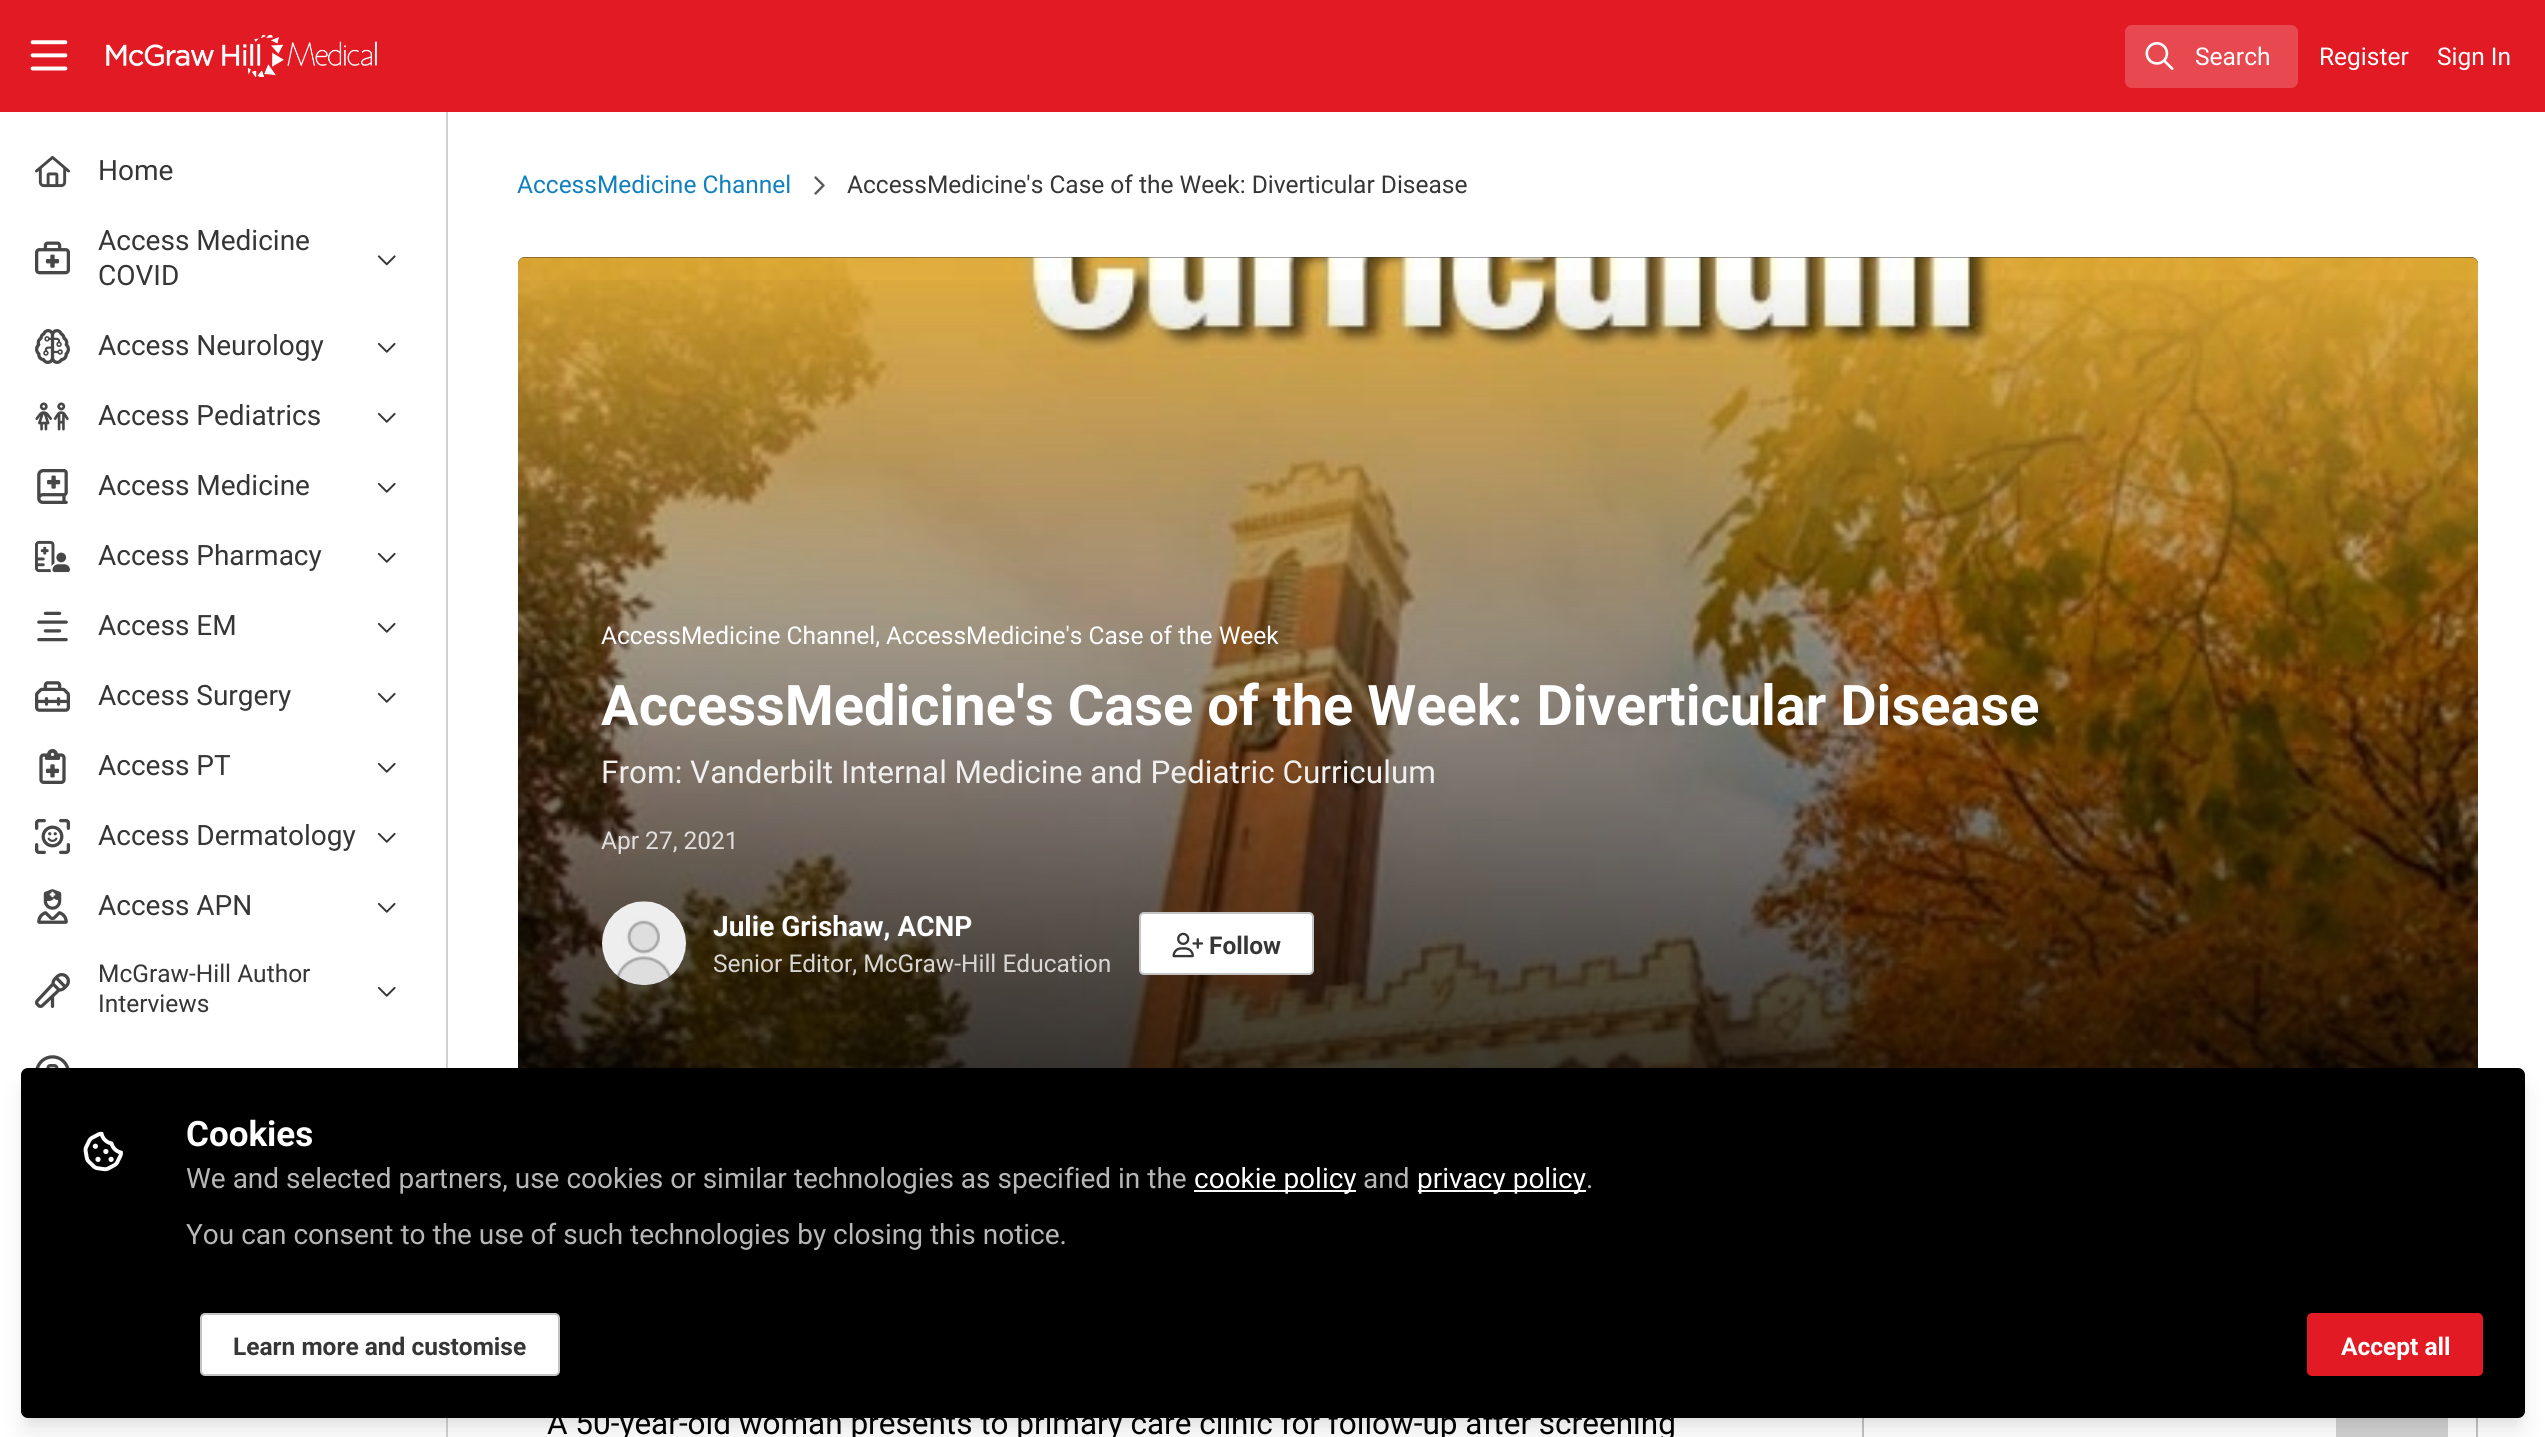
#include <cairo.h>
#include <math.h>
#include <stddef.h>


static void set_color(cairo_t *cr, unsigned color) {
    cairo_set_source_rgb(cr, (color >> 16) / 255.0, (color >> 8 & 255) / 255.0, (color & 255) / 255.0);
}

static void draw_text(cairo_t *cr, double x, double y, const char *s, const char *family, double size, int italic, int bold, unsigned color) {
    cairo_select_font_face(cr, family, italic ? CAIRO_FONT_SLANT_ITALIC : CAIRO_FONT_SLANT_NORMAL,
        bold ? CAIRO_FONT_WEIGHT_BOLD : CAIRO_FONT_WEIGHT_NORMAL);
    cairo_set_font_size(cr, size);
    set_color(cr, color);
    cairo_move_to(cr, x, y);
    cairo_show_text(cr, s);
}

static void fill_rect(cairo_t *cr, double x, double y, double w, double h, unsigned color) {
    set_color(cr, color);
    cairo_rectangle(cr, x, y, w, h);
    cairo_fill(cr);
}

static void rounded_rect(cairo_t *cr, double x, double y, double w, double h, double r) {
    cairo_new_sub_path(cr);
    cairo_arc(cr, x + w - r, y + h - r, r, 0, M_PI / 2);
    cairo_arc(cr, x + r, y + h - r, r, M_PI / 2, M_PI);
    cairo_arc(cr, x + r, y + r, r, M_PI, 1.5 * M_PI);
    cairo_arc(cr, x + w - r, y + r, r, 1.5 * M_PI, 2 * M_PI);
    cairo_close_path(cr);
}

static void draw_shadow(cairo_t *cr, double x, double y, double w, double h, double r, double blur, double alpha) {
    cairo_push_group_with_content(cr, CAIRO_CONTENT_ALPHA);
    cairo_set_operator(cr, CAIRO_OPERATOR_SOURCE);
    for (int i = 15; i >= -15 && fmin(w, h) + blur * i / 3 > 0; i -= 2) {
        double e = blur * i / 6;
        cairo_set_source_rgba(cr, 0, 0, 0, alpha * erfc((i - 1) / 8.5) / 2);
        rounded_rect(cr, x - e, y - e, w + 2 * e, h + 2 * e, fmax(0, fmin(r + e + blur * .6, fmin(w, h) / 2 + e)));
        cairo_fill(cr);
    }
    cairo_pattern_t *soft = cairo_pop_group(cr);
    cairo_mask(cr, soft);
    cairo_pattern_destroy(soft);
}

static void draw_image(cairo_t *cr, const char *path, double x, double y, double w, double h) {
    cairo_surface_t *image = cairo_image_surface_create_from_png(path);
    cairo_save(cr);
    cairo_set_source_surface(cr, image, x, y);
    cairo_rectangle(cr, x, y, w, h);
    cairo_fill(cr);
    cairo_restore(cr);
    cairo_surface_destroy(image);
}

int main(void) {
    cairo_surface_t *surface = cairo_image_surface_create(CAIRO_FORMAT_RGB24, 2545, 1437);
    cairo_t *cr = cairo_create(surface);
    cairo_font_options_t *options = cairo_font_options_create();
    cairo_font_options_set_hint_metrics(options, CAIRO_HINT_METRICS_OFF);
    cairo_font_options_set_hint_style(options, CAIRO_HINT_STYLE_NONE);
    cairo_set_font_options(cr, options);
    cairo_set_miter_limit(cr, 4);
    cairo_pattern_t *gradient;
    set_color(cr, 0xFFFFFF);
    cairo_paint(cr);
    fill_rect(cr, 0, 0, 2545, 112, 0xE21A23);
    draw_image(cr, "assets/img1.png", 30, 40, 38, 31);
    draw_image(cr, "assets/img2.png", 106, 35, 271, 42);
    set_color(cr, 0xE8484F);
    rounded_rect(cr, 2125, 25, 173, 63, 7);
    cairo_fill(cr);
    draw_image(cr, "assets/img3.png", 2145, 42, 29, 28);
    draw_text(cr, 2195, 65, "Search", "Roboto", 24.5, 0, 0, 0xFFFFFF);
    draw_text(cr, 2319, 65, "Register", "Roboto", 24.5, 0, 0, 0xFFFFFF);
    draw_text(cr, 2437, 65, "Sign In", "Roboto", 24.5, 0, 0, 0xFFFFFF);
    fill_rect(cr, 446, 112, 2, 1325, 0xD2D2D2);
    draw_image(cr, "assets/img4.png", 35, 156, 35, 32);
    draw_text(cr, 98, 180, "Home", "Roboto", 28, 0, 0, 0x363636);
    draw_image(cr, "assets/img5.png", 35, 241, 35, 34);
    draw_text(cr, 98, 250, "Access Medicine", "Roboto", 28, 0, 0, 0x363636);
    draw_text(cr, 98, 285, "COVID", "Roboto", 28, 0, 0, 0x363636);
    draw_image(cr, "assets/img6.png", 377, 255, 19, 11);
    draw_image(cr, "assets/img7.png", 35, 329, 35, 35);
    draw_text(cr, 98, 355, "Access Neurology", "Roboto", 28, 0, 0, 0x363636);
    draw_image(cr, "assets/img8.png", 377, 342, 19, 11);
    draw_image(cr, "assets/img9.png", 35, 402, 34, 29);
    draw_text(cr, 98, 425, "Access Pediatrics", "Roboto", 28, 0, 0, 0x363636);
    draw_image(cr, "assets/img8.png", 377, 412, 19, 11);
    draw_image(cr, "assets/img10.png", 37, 469, 31, 35);
    draw_text(cr, 98, 495, "Access Medicine", "Roboto", 28, 0, 0, 0x363636);
    draw_image(cr, "assets/img8.png", 377, 482, 19, 11);
    draw_image(cr, "assets/img11.png", 35, 540, 35, 33);
    draw_text(cr, 98, 565, "Access Pharmacy", "Roboto", 28, 0, 0, 0x363636);
    draw_image(cr, "assets/img8.png", 377, 552, 19, 11);
    draw_image(cr, "assets/img12.png", 37, 611, 31, 31);
    draw_text(cr, 98, 635, "Access EM", "Roboto", 28, 0, 0, 0x363636);
    draw_image(cr, "assets/img8.png", 377, 622, 19, 11);
    draw_image(cr, "assets/img13.png", 35, 681, 35, 31);
    draw_text(cr, 98, 705, "Access Surgery", "Roboto", 28, 0, 0, 0x363636);
    draw_image(cr, "assets/img8.png", 377, 692, 19, 11);
    draw_image(cr, "assets/img14.png", 39, 749, 27, 35);
    draw_text(cr, 98, 775, "Access PT", "Roboto", 28, 0, 0, 0x363636);
    draw_image(cr, "assets/img8.png", 377, 762, 19, 11);
    draw_image(cr, "assets/img15.png", 35, 819, 35, 35);
    draw_text(cr, 98, 845, "Access Dermatology", "Roboto", 28, 0, 0, 0x363636);
    draw_image(cr, "assets/img8.png", 377, 832, 19, 11);
    draw_image(cr, "assets/img16.png", 37, 889, 31, 35);
    draw_text(cr, 98, 915, "Access APN", "Roboto", 28, 0, 0, 0x363636);
    draw_image(cr, "assets/img8.png", 377, 902, 19, 11);
    draw_image(cr, "assets/img17.png", 35, 973, 35, 35);
    draw_text(cr, 98, 982, "McGraw-Hill Author", "Roboto", 24.5, 0, 0, 0x363636);
    draw_text(cr, 98, 1012, "Interviews", "Roboto", 24.5, 0, 0, 0x363636);
    draw_image(cr, "assets/img8.png", 377, 986, 19, 11);
    draw_image(cr, "assets/img18.png", 35, 1055, 35, 13);
    draw_text(cr, 517, 193, "AccessMedicine Channel", "Roboto", 24.5, 0, 0, 0x1280BE);
    cairo_new_path(cr);
    cairo_move_to(cr, 815.5, 177.5);
    cairo_line_to(cr, 823.5, 185.5);
    cairo_line_to(cr, 815.5, 193.5);
    set_color(cr, 0x585858);
    cairo_set_line_width(cr, 2.3);
    cairo_set_line_cap(cr, CAIRO_LINE_CAP_ROUND);
    cairo_set_line_join(cr, CAIRO_LINE_JOIN_ROUND);
    cairo_stroke(cr);
    draw_text(cr, 847, 193, "AccessMedicine's Case of the Week: Diverticular Disease", "Roboto", 24.5, 0, 0, 0x363636);
    set_color(cr, 0x252525);
    rounded_rect(cr, 518, 257, 1960, 840, 7);
    cairo_fill(cr);
    draw_image(cr, "assets/img19.png", 518, 257, 1960, 811);
    gradient = cairo_pattern_create_linear(1498, 257, 1498, 1097);
    cairo_pattern_add_color_stop_rgba(gradient, 0, 0, 0, 0, 0);
    cairo_pattern_add_color_stop_rgba(gradient, 1, 0, 0, 0, 0.8);
    cairo_set_source(cr, gradient);
    cairo_pattern_destroy(gradient);
    cairo_rectangle(cr, 518, 280, 1960, 788);
    cairo_fill(cr);
    draw_text(cr, 601, 644, "AccessMedicine Channel, AccessMedicine's Case of the Week", "Roboto", 24.5, 0, 0, 0xFFFFFF);
    draw_text(cr, 601, 725, "AccessMedicine's Case of the Week: Diverticular Disease", "Roboto", 56, 0, 1, 0xFFFFFF);
    draw_text(cr, 601, 783, "From: Vanderbilt Internal Medicine and Pediatric Curriculum", "Roboto", 31.5, 0, 0, 0xF1F0EE);
    draw_text(cr, 601, 849, "Apr 27, 2021", "Roboto", 24.5, 0, 0, 0xE1DFDD);
    draw_image(cr, "assets/img20.png", 602, 901, 84, 85);
    draw_text(cr, 713, 936, "Julie Grishaw, ACNP", "Roboto", 28, 0, 1, 0xFFFFFF);
    draw_text(cr, 713, 972, "Senior Editor, McGraw-Hill Education", "Roboto", 24.5, 0, 0, 0xD8D6D3);
    set_color(cr, 0xFFFFFF);
    rounded_rect(cr, 1140, 913, 173, 61, 4);
    cairo_fill_preserve(cr);
    set_color(cr, 0xC3C3C3);
    cairo_set_line_width(cr, 2);
    cairo_set_line_cap(cr, CAIRO_LINE_CAP_BUTT);
    cairo_set_line_join(cr, CAIRO_LINE_JOIN_MITER);
    cairo_stroke(cr);
    draw_image(cr, "assets/img21.png", 1172, 932, 32, 26);
    draw_text(cr, 1209, 954, "Follow", "Roboto", 24.5, 0, 1, 0x363636);
    draw_text(cr, 547, 1434, "A 50-year-old woman presents to primary care clinic for follow-up after screening", "Roboto", 31.5, 0, 0, 0x000000);
    cairo_rectangle(cr, 1863, 1154, 614, 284);
    set_color(cr, 0xC3C3C3);
    cairo_stroke(cr);
    fill_rect(cr, 2336, 1418, 112, 19, 0xD2D2D2);
    set_color(cr, 0x000000);
    draw_shadow(cr, 25, 1078, 2497, 343, 4, 5, 0.05);
    draw_shadow(cr, 26, 1090, 2494, 340, 2, 13, 0.1);
    set_color(cr, 0x000000);
    rounded_rect(cr, 21, 1068, 2504, 350, 7);
    cairo_fill(cr);
    draw_image(cr, "assets/img22.png", 83, 1131, 40, 41);
    draw_text(cr, 186, 1146, "Cookies", "Roboto", 35, 0, 1, 0xFFFFFF);
    draw_text(cr, 186, 1188, "We and selected partners, use cookies or similar technologies as specified in the", "Roboto", 28, 0, 0, 0xB7B7B7);
    fill_rect(cr, 1194, 1190, 162, 2, 0xFFFFFF);
    draw_text(cr, 1194, 1188, "cookie policy", "Roboto", 28, 0, 0, 0xFFFFFF);
    draw_text(cr, 1363, 1188, "and", "Roboto", 28, 0, 0, 0xB7B7B7);
    fill_rect(cr, 1418, 1190, 168, 2, 0xFFFFFF);
    draw_text(cr, 1417, 1188, "privacy policy", "Roboto", 28, 0, 0, 0xFFFFFF);
    draw_text(cr, 1586, 1188, ".", "Roboto", 28, 0, 0, 0xB7B7B7);
    draw_text(cr, 186, 1244, "You can consent to the use of such technologies by closing this notice.", "Roboto", 28, 0, 0, 0xB7B7B7);
    set_color(cr, 0xFFFFFF);
    rounded_rect(cr, 201, 1314, 358, 61, 4);
    cairo_fill_preserve(cr);
    set_color(cr, 0xC3C3C3);
    cairo_stroke(cr);
    draw_text(cr, 233, 1355, "Learn more and customise", "Roboto", 24.5, 0, 1, 0x363636);
    set_color(cr, 0xE21A23);
    rounded_rect(cr, 2308, 1314, 174, 61, 4);
    cairo_fill_preserve(cr);
    cairo_stroke(cr);
    draw_text(cr, 2341, 1355, "Accept all", "Roboto", 24.5, 0, 1, 0xFFFFFF);
    cairo_surface_write_to_png(surface, "output.png");
    cairo_font_options_destroy(options);
    cairo_destroy(cr);
    cairo_surface_destroy(surface);
    return 0;
}
